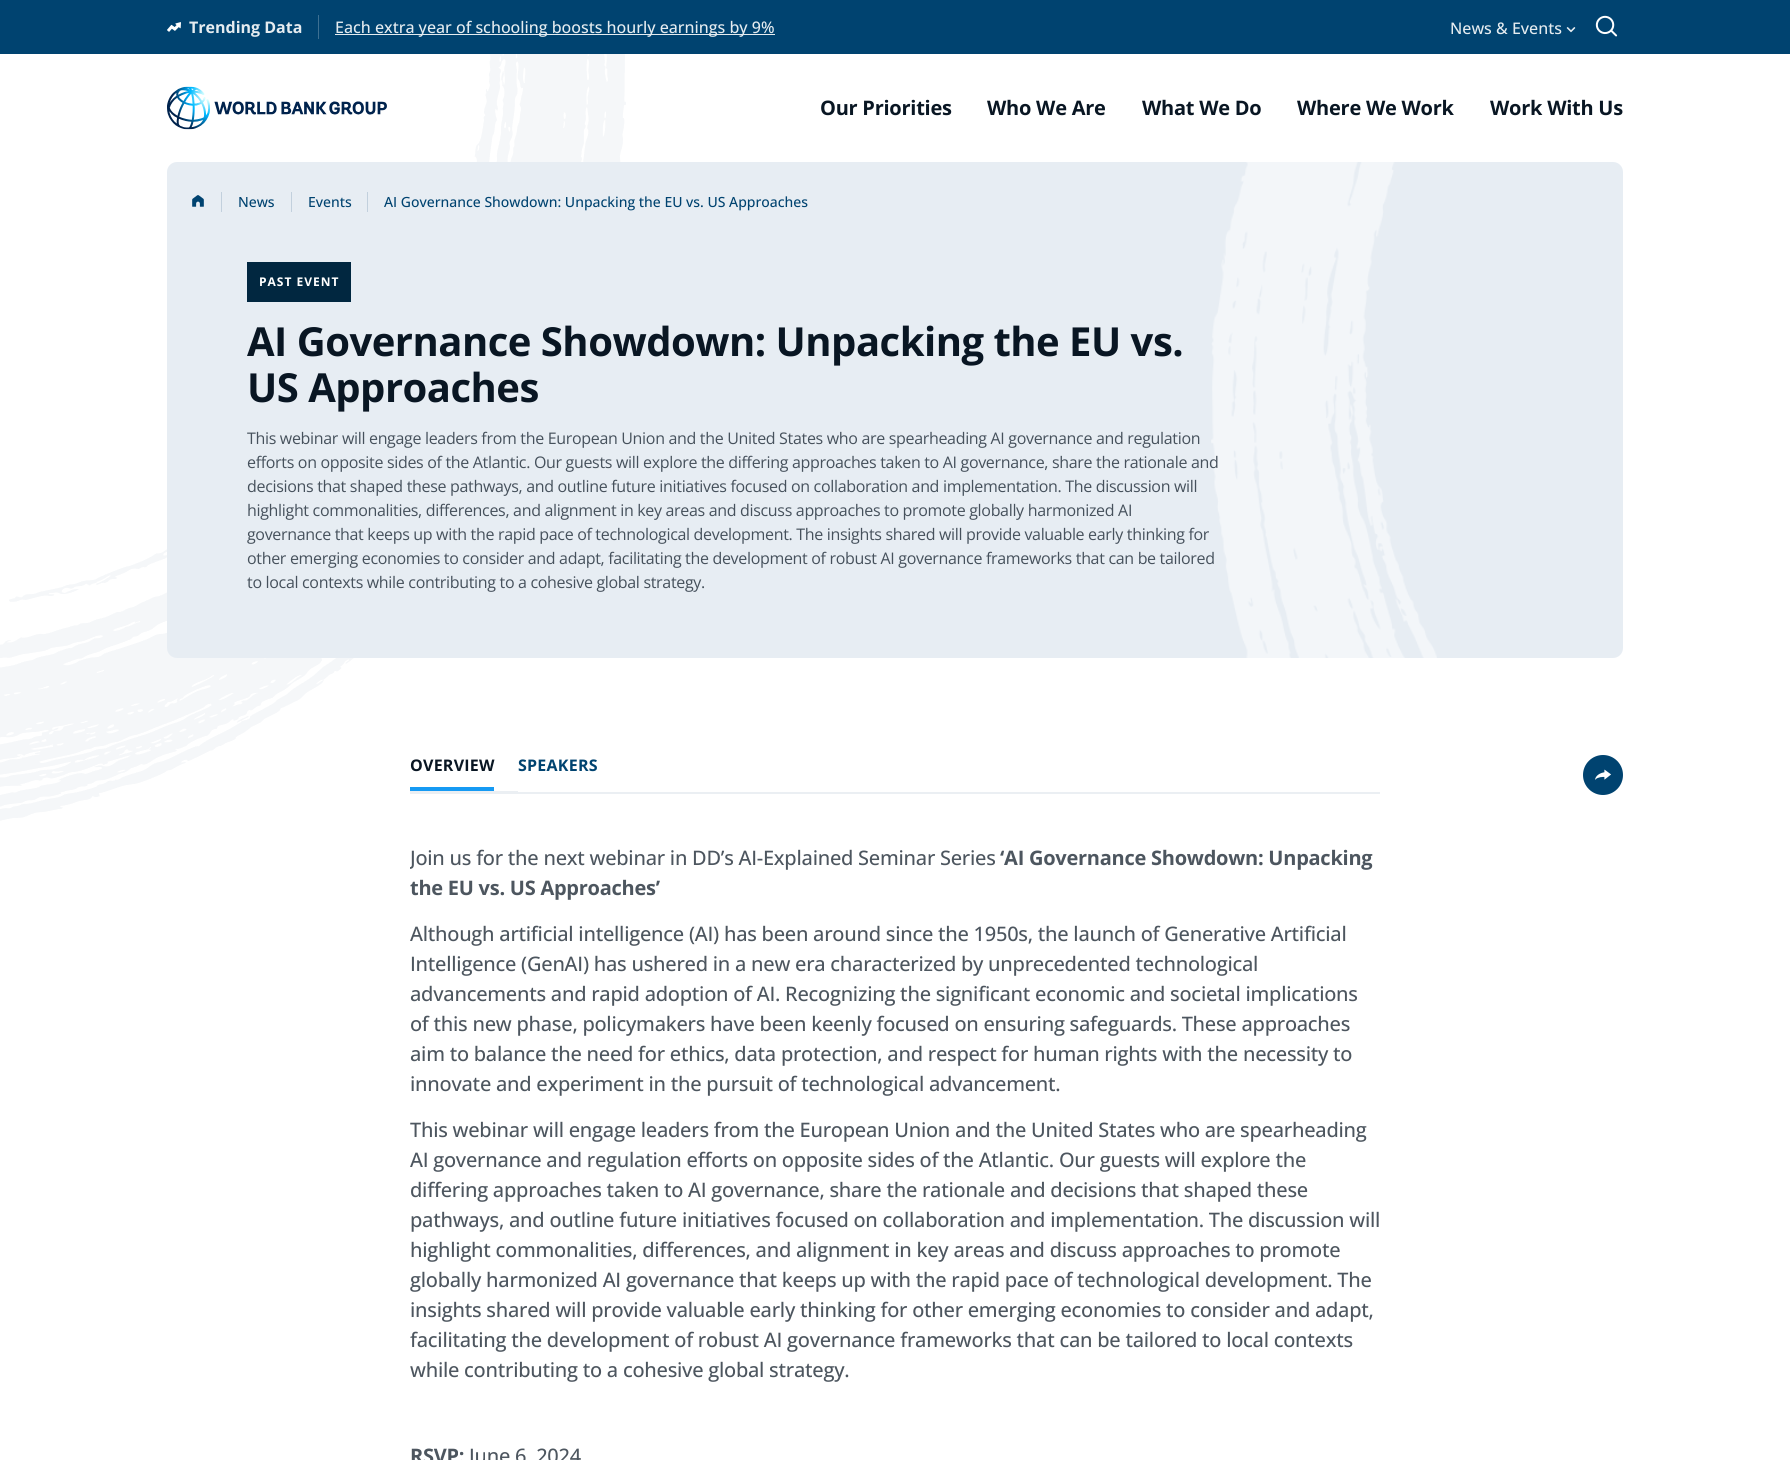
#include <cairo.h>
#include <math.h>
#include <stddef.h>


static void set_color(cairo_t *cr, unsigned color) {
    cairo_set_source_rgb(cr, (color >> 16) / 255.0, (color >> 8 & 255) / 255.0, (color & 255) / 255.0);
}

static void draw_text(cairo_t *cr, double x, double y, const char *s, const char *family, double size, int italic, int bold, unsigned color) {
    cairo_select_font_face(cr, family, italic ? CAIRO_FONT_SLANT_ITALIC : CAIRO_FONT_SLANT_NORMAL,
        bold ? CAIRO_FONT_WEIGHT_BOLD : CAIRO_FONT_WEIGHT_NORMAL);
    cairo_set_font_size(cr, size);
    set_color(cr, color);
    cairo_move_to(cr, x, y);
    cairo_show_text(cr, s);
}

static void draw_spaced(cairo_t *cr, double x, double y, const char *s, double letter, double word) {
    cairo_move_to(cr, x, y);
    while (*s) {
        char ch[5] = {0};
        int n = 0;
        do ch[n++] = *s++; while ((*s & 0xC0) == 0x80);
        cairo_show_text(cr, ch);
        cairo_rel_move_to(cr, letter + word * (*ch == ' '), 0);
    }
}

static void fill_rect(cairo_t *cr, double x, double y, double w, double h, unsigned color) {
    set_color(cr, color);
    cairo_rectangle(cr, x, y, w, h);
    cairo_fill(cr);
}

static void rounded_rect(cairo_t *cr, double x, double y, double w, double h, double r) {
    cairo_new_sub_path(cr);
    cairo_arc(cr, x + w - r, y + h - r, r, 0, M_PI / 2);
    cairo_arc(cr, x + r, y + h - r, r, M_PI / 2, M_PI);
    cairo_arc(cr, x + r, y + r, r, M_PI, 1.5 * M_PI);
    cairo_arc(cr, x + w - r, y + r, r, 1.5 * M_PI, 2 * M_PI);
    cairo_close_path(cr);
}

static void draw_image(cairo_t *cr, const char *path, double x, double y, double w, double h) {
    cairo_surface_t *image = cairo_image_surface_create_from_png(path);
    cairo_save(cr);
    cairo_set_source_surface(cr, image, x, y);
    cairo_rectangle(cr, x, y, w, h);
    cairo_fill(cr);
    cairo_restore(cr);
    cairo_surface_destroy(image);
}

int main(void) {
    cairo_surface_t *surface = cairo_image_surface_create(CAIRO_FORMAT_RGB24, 1790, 1460);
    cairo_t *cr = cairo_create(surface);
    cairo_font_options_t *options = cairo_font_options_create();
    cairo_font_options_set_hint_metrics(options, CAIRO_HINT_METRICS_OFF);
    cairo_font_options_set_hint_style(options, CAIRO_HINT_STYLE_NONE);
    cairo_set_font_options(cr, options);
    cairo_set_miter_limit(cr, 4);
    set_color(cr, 0xFFFFFF);
    cairo_paint(cr);
    draw_image(cr, "assets/img1.png", 0, 54, 626, 767);
    fill_rect(cr, 0, 0, 1790, 54, 0x004370);
    draw_image(cr, "assets/img2.png", 167, 22, 14, 10);
    draw_text(cr, 189, 33, "Trending Data", "Open Sans", 16, 0, 1, 0xE5ECF0);
    fill_rect(cr, 318, 15, 1, 24, 0x3D7092);
    fill_rect(cr, 335, 34, 440, 1, 0xE5ECF0);
    draw_text(cr, 335, 33, "Each extra year of schooling boosts hourly earnings by 9%", "Open Sans Medium", 16, 0, 0, 0xE5ECF0);
    draw_text(cr, 1450, 34, "News & Events", "Open Sans Medium", 16, 0, 0, 0xE5ECF0);
    draw_image(cr, "assets/img3.png", 1566, 27, 10, 6);
    draw_image(cr, "assets/img4.png", 1595, 15, 23, 22);
    draw_image(cr, "assets/img5.png", 167, 86, 220, 44);
    cairo_select_font_face(cr, "Open Sans", CAIRO_FONT_SLANT_NORMAL, CAIRO_FONT_WEIGHT_BOLD);
    cairo_set_font_size(cr, 20);
    set_color(cr, 0x091623);
    draw_spaced(cr, 820, 115, "Our Priorities", -0.25, 0);
    draw_spaced(cr, 987, 115, "Who We Are", -0.25, 0);
    draw_spaced(cr, 1142, 115, "What We Do", -0.25, 0);
    draw_spaced(cr, 1297, 115, "Where We Work", -0.25, 0);
    draw_spaced(cr, 1490, 115, "Work With Us", -0.25, 0);
    set_color(cr, 0xE7EDF3);
    rounded_rect(cr, 167, 162, 1456, 496, 10);
    cairo_fill(cr);
    draw_image(cr, "assets/img6.png", 1211, 162, 226, 496);
    draw_image(cr, "assets/img7.png", 192, 195, 12, 12);
    fill_rect(cr, 221, 192, 1, 20, 0xC2D0DD);
    draw_text(cr, 238, 207, "News", "Open Sans Medium", 14, 0, 0, 0x004370);
    fill_rect(cr, 291, 192, 1, 20, 0xC2D0DD);
    draw_text(cr, 308, 207, "Events", "Open Sans Medium", 14, 0, 0, 0x004370);
    fill_rect(cr, 367, 192, 1, 20, 0xC2D0DD);
    draw_text(cr, 384, 207, "AI Governance Showdown: Unpacking the EU vs. US Approaches", "Open Sans Medium", 14, 0, 0, 0x004370);
    fill_rect(cr, 247, 262, 104, 40, 0x012740);
    cairo_select_font_face(cr, "Open Sans", CAIRO_FONT_SLANT_NORMAL, CAIRO_FONT_WEIGHT_BOLD);
    cairo_set_font_size(cr, 12);
    set_color(cr, 0xFFFFFF);
    draw_spaced(cr, 259, 286, "PAST EVENT", 1, 0);
    cairo_set_font_size(cr, 40);
    set_color(cr, 0x091623);
    draw_spaced(cr, 247, 356, "AI Governance Showdown: Unpacking the EU vs.", -0.5, 0);
    draw_spaced(cr, 247, 402, "US Approaches", -0.5, 0);
    cairo_select_font_face(cr, "Open Sans", CAIRO_FONT_SLANT_NORMAL, CAIRO_FONT_WEIGHT_NORMAL);
    cairo_set_font_size(cr, 16);
    set_color(cr, 0x46515C);
    draw_spaced(cr, 247, 444, "This webinar will engage leaders from the European Union and the United States who are spearheading AI governance and regulation", -0.32, 0);
    draw_spaced(cr, 247, 468, "efforts on opposite sides of the Atlantic. Our guests will explore the differing approaches taken to AI governance, share the rationale and", -0.32, 0);
    draw_spaced(cr, 247, 492, "decisions that shaped these pathways, and outline future initiatives focused on collaboration and implementation. The discussion will", -0.32, 0);
    draw_spaced(cr, 247, 516, "highlight commonalities, differences, and alignment in key areas and discuss approaches to promote globally harmonized AI", -0.32, 0);
    draw_spaced(cr, 247, 540, "governance that keeps up with the rapid pace of technological development. The insights shared will provide valuable early thinking for", -0.32, 0);
    draw_spaced(cr, 247, 564, "other emerging economies to consider and adapt, facilitating the development of robust AI governance frameworks that can be tailored", -0.32, 0);
    draw_spaced(cr, 247, 588, "to local contexts while contributing to a cohesive global strategy.", -0.32, 0);
    fill_rect(cr, 410, 792, 970, 2, 0xEBEFF3);
    fill_rect(cr, 410, 791, 108, 1, 0xEBEFF3);
    cairo_select_font_face(cr, "Open Sans", CAIRO_FONT_SLANT_NORMAL, CAIRO_FONT_WEIGHT_BOLD);
    set_color(cr, 0x091623);
    draw_spaced(cr, 410, 771, "OVERVIEW", 0.25, 0);
    fill_rect(cr, 410, 787, 84, 4, 0x169AF3);
    set_color(cr, 0x004370);
    draw_spaced(cr, 518, 771, "SPEAKERS", 0.25, 0);
    cairo_save(cr);
    cairo_rectangle(cr, 410, 843, 970, 558);
    cairo_clip(cr);
    cairo_select_font_face(cr, "Open Sans Medium", CAIRO_FONT_SLANT_NORMAL, CAIRO_FONT_WEIGHT_NORMAL);
    cairo_set_font_size(cr, 20);
    set_color(cr, 0x4D565F);
    draw_spaced(cr, 410, 865, "Join us for the next webinar in DD’s AI-Explained Seminar Series", -0.25, 0);
    cairo_restore(cr);
    cairo_set_font_size(cr, 20);
    set_color(cr, 0x4D565F);
    draw_spaced(cr, 1000, 865, "‘AI Governance Showdown: Unpacking", -0.25, 0);
    draw_spaced(cr, 410, 895, "the EU vs. US Approaches’", -0.25, 0);
    cairo_select_font_face(cr, "Open Sans Medium", CAIRO_FONT_SLANT_NORMAL, CAIRO_FONT_WEIGHT_NORMAL);
    draw_spaced(cr, 410, 941, "Although artificial intelligence (AI) has been around since the 1950s, the launch of Generative Artificial", -0.25, 0);
    draw_spaced(cr, 410, 971, "Intelligence (GenAI) has ushered in a new era characterized by unprecedented technological", -0.25, 0);
    draw_spaced(cr, 410, 1001, "advancements and rapid adoption of AI. Recognizing the significant economic and societal implications", -0.25, 0);
    draw_spaced(cr, 410, 1031, "of this new phase, policymakers have been keenly focused on ensuring safeguards. These approaches", -0.25, 0);
    draw_spaced(cr, 410, 1061, "aim to balance the need for ethics, data protection, and respect for human rights with the necessity to", -0.25, 0);
    draw_spaced(cr, 410, 1091, "innovate and experiment in the pursuit of technological advancement.", -0.25, 0);
    draw_spaced(cr, 410, 1137, "This webinar will engage leaders from the European Union and the United States who are spearheading", -0.25, 0);
    draw_spaced(cr, 410, 1167, "AI governance and regulation efforts on opposite sides of the Atlantic. Our guests will explore the", -0.25, 0);
    draw_spaced(cr, 410, 1197, "differing approaches taken to AI governance, share the rationale and decisions that shaped these", -0.25, 0);
    draw_spaced(cr, 410, 1227, "pathways, and outline future initiatives focused on collaboration and implementation. The discussion will", -0.25, 0);
    draw_spaced(cr, 410, 1257, "highlight commonalities, differences, and alignment in key areas and discuss approaches to promote", -0.25, 0);
    draw_spaced(cr, 410, 1287, "globally harmonized AI governance that keeps up with the rapid pace of technological development. The", -0.25, 0);
    draw_spaced(cr, 410, 1317, "insights shared will provide valuable early thinking for other emerging economies to consider and adapt,", -0.25, 0);
    draw_spaced(cr, 410, 1347, "facilitating the development of robust AI governance frameworks that can be tailored to local contexts", -0.25, 0);
    draw_spaced(cr, 410, 1377, "while contributing to a cohesive global strategy.", -0.25, 0);
    cairo_select_font_face(cr, "Open Sans", CAIRO_FONT_SLANT_NORMAL, CAIRO_FONT_WEIGHT_BOLD);
    draw_spaced(cr, 410, 1463, "RSVP:", -0.25, 0);
    cairo_select_font_face(cr, "Open Sans Medium", CAIRO_FONT_SLANT_NORMAL, CAIRO_FONT_WEIGHT_NORMAL);
    draw_spaced(cr, 469, 1463, "June 6, 2024", -0.25, 0);
    set_color(cr, 0x004370);
    cairo_new_path(cr);
    cairo_arc(cr, 1603, 775, 20, 0, 2 * M_PI);
    cairo_fill(cr);
    draw_image(cr, "assets/img8.png", 1595, 769, 16, 11);
    cairo_surface_write_to_png(surface, "output.png");
    cairo_font_options_destroy(options);
    cairo_destroy(cr);
    cairo_surface_destroy(surface);
    return 0;
}
